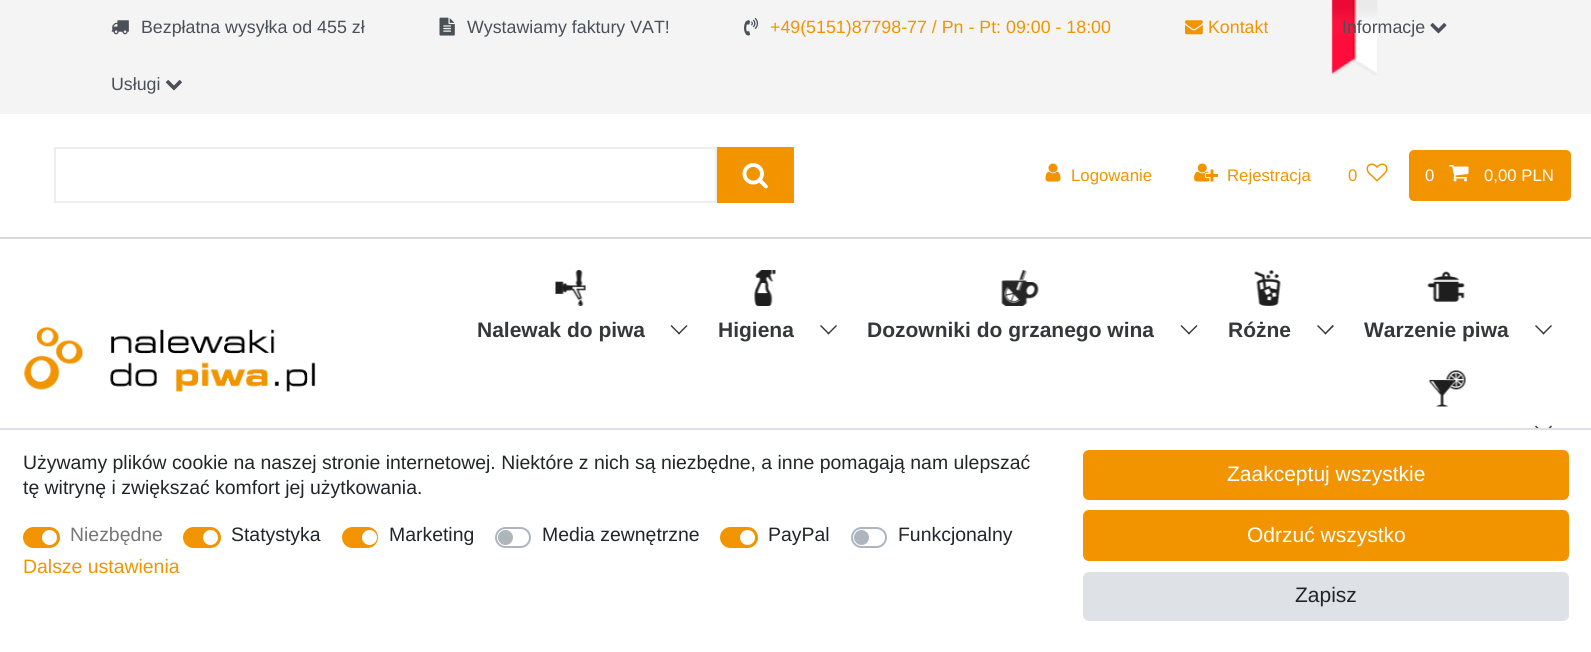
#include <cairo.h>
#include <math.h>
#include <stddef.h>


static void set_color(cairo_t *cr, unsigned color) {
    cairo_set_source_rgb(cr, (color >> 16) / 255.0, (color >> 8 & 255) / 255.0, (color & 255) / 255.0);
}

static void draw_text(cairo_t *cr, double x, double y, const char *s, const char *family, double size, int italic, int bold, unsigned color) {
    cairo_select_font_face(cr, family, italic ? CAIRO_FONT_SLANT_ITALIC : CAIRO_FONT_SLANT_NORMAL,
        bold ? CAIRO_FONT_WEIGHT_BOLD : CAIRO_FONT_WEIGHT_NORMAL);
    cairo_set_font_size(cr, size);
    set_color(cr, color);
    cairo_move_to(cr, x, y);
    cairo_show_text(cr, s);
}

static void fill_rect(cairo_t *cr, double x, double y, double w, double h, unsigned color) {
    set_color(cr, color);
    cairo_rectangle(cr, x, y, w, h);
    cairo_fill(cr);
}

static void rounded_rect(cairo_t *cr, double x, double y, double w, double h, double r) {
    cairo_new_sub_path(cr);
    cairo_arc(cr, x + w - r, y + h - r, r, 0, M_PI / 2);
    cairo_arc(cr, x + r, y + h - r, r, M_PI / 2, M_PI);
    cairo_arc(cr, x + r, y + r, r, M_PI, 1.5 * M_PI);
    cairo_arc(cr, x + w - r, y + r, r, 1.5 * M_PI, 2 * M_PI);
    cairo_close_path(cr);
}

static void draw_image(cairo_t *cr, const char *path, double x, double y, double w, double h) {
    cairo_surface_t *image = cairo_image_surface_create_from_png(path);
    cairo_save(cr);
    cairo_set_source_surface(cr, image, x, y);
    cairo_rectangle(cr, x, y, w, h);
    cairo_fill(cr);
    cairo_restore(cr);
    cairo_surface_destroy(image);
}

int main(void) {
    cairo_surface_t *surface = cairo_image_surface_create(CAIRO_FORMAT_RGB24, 1591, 652);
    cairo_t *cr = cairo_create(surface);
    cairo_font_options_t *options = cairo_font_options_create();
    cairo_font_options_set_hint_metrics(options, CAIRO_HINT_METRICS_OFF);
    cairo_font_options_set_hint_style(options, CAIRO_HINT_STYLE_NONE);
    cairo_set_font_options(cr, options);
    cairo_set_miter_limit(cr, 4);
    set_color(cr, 0xFFFFFF);
    cairo_paint(cr);
    fill_rect(cr, 0, 0, 1591, 114, 0xF4F4F4);
    draw_image(cr, "assets/img1.png", 1331, 0, 47, 75);
    draw_image(cr, "assets/img2.png", 111, 20, 18, 15);
    draw_text(cr, 141, 33, "Bezpłatna wysyłka od 455 zł", "Liberation Sans", 17.8, 0, 0, 0x495057);
    draw_image(cr, "assets/img3.png", 439, 17, 16, 19);
    draw_text(cr, 467, 33, "Wystawiamy faktury VAT!", "Liberation Sans", 17.8, 0, 0, 0x495057);
    draw_image(cr, "assets/img4.png", 744, 17, 14, 19);
    draw_text(cr, 770, 33, "+49(5151)87798-77 / Pn - Pt: 09:00 - 18:00", "Liberation Sans", 17.8, 0, 0, 0xF29400);
    draw_image(cr, "assets/img5.png", 1185, 20, 18, 15);
    draw_text(cr, 1208, 33, "Kontakt", "Liberation Sans", 17.8, 0, 0, 0xF29400);
    draw_text(cr, 1342, 33, "Informacje", "Liberation Sans", 17.8, 0, 0, 0x495057);
    draw_image(cr, "assets/img6.png", 1430, 23, 17, 11);
    draw_text(cr, 111, 90, "Usługi", "Liberation Sans", 17.8, 0, 0, 0x495057);
    draw_image(cr, "assets/img7.png", 165, 80, 17, 11);
    fill_rect(cr, 0, 237, 1591, 2, 0xD8D8D8);
    cairo_rectangle(cr, 55, 148, 661, 54);
    set_color(cr, 0xEEEEEE);
    cairo_stroke(cr);
    fill_rect(cr, 717, 147, 77, 56, 0xF29400);
    draw_image(cr, "assets/img8.png", 742, 163, 26, 26);
    draw_image(cr, "assets/img9.png", 1045, 163, 16, 19);
    draw_text(cr, 1071, 181, "Logowanie", "Liberation Sans", 16.75, 0, 0, 0xF29400);
    draw_image(cr, "assets/img10.png", 1194, 163, 24, 19);
    draw_text(cr, 1227, 181, "Rejestracja", "Liberation Sans", 16.75, 0, 0, 0xF29400);
    draw_text(cr, 1348, 181, "0", "Liberation Sans", 16.75, 0, 0, 0xF29400);
    draw_image(cr, "assets/img11.png", 1366, 163, 22, 19);
    rounded_rect(cr, 1409, 150, 162, 51, 5);
    cairo_fill(cr);
    draw_text(cr, 1425, 181, "0", "Liberation Sans", 16.75, 0, 0, 0xFFFFFF);
    draw_image(cr, "assets/img12.png", 1449, 165, 20, 17);
    draw_text(cr, 1484, 181, "0,00 PLN", "Liberation Sans", 16.75, 0, 0, 0xFFFFFF);
    draw_image(cr, "assets/img13.png", 23, 326, 293, 66);
    draw_image(cr, "assets/img14.png", 555, 270, 31, 36);
    draw_text(cr, 477, 337, "Nalewak do piwa", "Liberation Sans", 21, 0, 1, 0x35373A);
    cairo_new_path(cr);
    cairo_move_to(cr, 686.5, 325);
    cairo_line_to(cr, 687.5, 326);
    cairo_line_to(cr, 679, 334.5);
    cairo_line_to(cr, 678, 333.5);
    cairo_close_path(cr);
    cairo_fill(cr);
    cairo_new_path(cr);
    cairo_move_to(cr, 671.5, 325);
    cairo_line_to(cr, 680, 333.5);
    cairo_line_to(cr, 679, 334.5);
    cairo_line_to(cr, 670.5, 326);
    cairo_close_path(cr);
    cairo_fill(cr);
    draw_image(cr, "assets/img15.png", 754, 270, 22, 36);
    draw_text(cr, 718, 337, "Higiena", "Liberation Sans", 21, 0, 1, 0x35373A);
    cairo_new_path(cr);
    cairo_move_to(cr, 836, 325);
    cairo_line_to(cr, 837, 326);
    cairo_line_to(cr, 828.5, 334.5);
    cairo_line_to(cr, 827.5, 333.5);
    cairo_close_path(cr);
    cairo_fill(cr);
    cairo_new_path(cr);
    cairo_move_to(cr, 821, 325);
    cairo_line_to(cr, 829.5, 333.5);
    cairo_line_to(cr, 828.5, 334.5);
    cairo_line_to(cr, 820, 326);
    cairo_close_path(cr);
    cairo_fill(cr);
    draw_image(cr, "assets/img16.png", 1001, 270, 38, 36);
    draw_text(cr, 867, 337, "Dozowniki do grzanego wina", "Liberation Sans", 21, 0, 1, 0x35373A);
    cairo_new_path(cr);
    cairo_move_to(cr, 1196.5, 325);
    cairo_line_to(cr, 1197.5, 326);
    cairo_line_to(cr, 1189, 334.5);
    cairo_line_to(cr, 1188, 333.5);
    cairo_close_path(cr);
    cairo_fill(cr);
    cairo_new_path(cr);
    cairo_move_to(cr, 1181.5, 325);
    cairo_line_to(cr, 1190, 333.5);
    cairo_line_to(cr, 1189, 334.5);
    cairo_line_to(cr, 1180.5, 326);
    cairo_close_path(cr);
    cairo_fill(cr);
    draw_image(cr, "assets/img17.png", 1254, 270, 27, 36);
    draw_text(cr, 1228, 337, "Różne", "Liberation Sans", 21, 0, 1, 0x35373A);
    cairo_new_path(cr);
    cairo_move_to(cr, 1332.5, 325);
    cairo_line_to(cr, 1334, 326);
    cairo_line_to(cr, 1325.5, 334.5);
    cairo_line_to(cr, 1324.5, 333.5);
    cairo_close_path(cr);
    cairo_fill(cr);
    cairo_new_path(cr);
    cairo_move_to(cr, 1318, 325);
    cairo_line_to(cr, 1326.5, 333.5);
    cairo_line_to(cr, 1325.5, 334.5);
    cairo_line_to(cr, 1317, 326);
    cairo_close_path(cr);
    cairo_fill(cr);
    draw_image(cr, "assets/img18.png", 1427, 271, 38, 31);
    draw_text(cr, 1364, 337, "Warzenie piwa", "Liberation Sans", 21, 0, 1, 0x35373A);
    cairo_new_path(cr);
    cairo_move_to(cr, 1551, 325);
    cairo_line_to(cr, 1552, 326);
    cairo_line_to(cr, 1543.5, 334.5);
    cairo_line_to(cr, 1542.5, 333.5);
    cairo_close_path(cr);
    cairo_fill(cr);
    cairo_new_path(cr);
    cairo_move_to(cr, 1536, 325);
    cairo_line_to(cr, 1544.5, 333.5);
    cairo_line_to(cr, 1543.5, 334.5);
    cairo_line_to(cr, 1535, 326);
    cairo_close_path(cr);
    cairo_fill(cr);
    draw_image(cr, "assets/img19.png", 1429, 370, 37, 37);
    cairo_new_path(cr);
    cairo_move_to(cr, 1551, 425.5);
    cairo_line_to(cr, 1552, 426.5);
    cairo_line_to(cr, 1543.5, 435);
    cairo_line_to(cr, 1542.5, 434);
    cairo_close_path(cr);
    cairo_fill(cr);
    cairo_new_path(cr);
    cairo_move_to(cr, 1536, 425.5);
    cairo_line_to(cr, 1544.5, 434);
    cairo_line_to(cr, 1543.5, 435);
    cairo_line_to(cr, 1535, 426.5);
    cairo_close_path(cr);
    cairo_fill(cr);
    fill_rect(cr, 1538, 430, 11, 5, 0xFFFFFF);
    fill_rect(cr, 0, 428, 1591, 2, 0xDEE2E6);
    draw_text(cr, 23, 469, "Używamy plików cookie na naszej stronie internetowej. Niektóre z nich są niezbędne, a inne pomagają nam ulepszać", "Liberation Sans", 19.42, 0, 0, 0x212529);
    draw_text(cr, 23, 494, "tę witrynę i zwiększać komfort jej użytkowania.", "Liberation Sans", 19.42, 0, 0, 0x212529);
    set_color(cr, 0xF29400);
    rounded_rect(cr, 24, 528, 35, 19, 9.5);
    cairo_fill_preserve(cr);
    cairo_stroke(cr);
    draw_text(cr, 70, 541, "Niezbędne", "Liberation Sans", 19.42, 0, 0, 0x767676);
    set_color(cr, 0xFFFFFF);
    cairo_new_path(cr);
    cairo_arc(cr, 49.5, 537.5, 7.5, 0, 2 * M_PI);
    cairo_fill(cr);
    set_color(cr, 0xF29400);
    rounded_rect(cr, 184, 528, 36, 19, 9.5);
    cairo_fill_preserve(cr);
    cairo_stroke(cr);
    draw_text(cr, 231, 541, "Statystyka", "Liberation Sans", 19.42, 0, 0, 0x212529);
    set_color(cr, 0xFFFFFF);
    cairo_new_path(cr);
    cairo_arc(cr, 210.5, 537.5, 7.5, 0, 2 * M_PI);
    cairo_fill(cr);
    set_color(cr, 0xF29400);
    rounded_rect(cr, 343, 528, 34, 19, 9.5);
    cairo_fill_preserve(cr);
    cairo_stroke(cr);
    draw_text(cr, 389, 541, "Marketing", "Liberation Sans", 19.42, 0, 0, 0x212529);
    set_color(cr, 0xFFFFFF);
    cairo_new_path(cr);
    cairo_arc(cr, 369.5, 537.5, 7.5, 0, 2 * M_PI);
    cairo_fill(cr);
    rounded_rect(cr, 496, 528, 34, 19, 9.5);
    set_color(cr, 0xADB5BD);
    cairo_stroke(cr);
    draw_text(cr, 542, 541, "Media zewnętrzne", "Liberation Sans", 19.42, 0, 0, 0x212529);
    set_color(cr, 0xADB5BD);
    cairo_new_path(cr);
    cairo_arc(cr, 505.5, 537.5, 7.5, 0, 2 * M_PI);
    cairo_fill(cr);
    set_color(cr, 0xF29400);
    rounded_rect(cr, 721, 528, 36, 19, 9.5);
    cairo_fill_preserve(cr);
    cairo_stroke(cr);
    draw_text(cr, 768, 541, "PayPal", "Liberation Sans", 19.42, 0, 0, 0x212529);
    set_color(cr, 0xFFFFFF);
    cairo_new_path(cr);
    cairo_arc(cr, 747.5, 537.5, 7.5, 0, 2 * M_PI);
    cairo_fill(cr);
    rounded_rect(cr, 852, 528, 34, 19, 9.5);
    set_color(cr, 0xADB5BD);
    cairo_stroke(cr);
    draw_text(cr, 898, 541, "Funkcjonalny", "Liberation Sans", 19.42, 0, 0, 0x212529);
    set_color(cr, 0xADB5BD);
    cairo_new_path(cr);
    cairo_arc(cr, 861.5, 537.5, 7.5, 0, 2 * M_PI);
    cairo_fill(cr);
    draw_text(cr, 23, 573, "Dalsze ustawienia", "Liberation Sans", 19.42, 0, 0, 0xF29400);
    rounded_rect(cr, 1084, 451, 484, 48, 5);
    cairo_fill_preserve(cr);
    cairo_stroke(cr);
    draw_text(cr, 1227, 481, "Zaakceptuj wszystkie", "Liberation Sans", 21, 0, 0, 0xFFFFFF);
    set_color(cr, 0xF29400);
    rounded_rect(cr, 1084, 511, 484, 49, 5);
    cairo_fill_preserve(cr);
    cairo_stroke(cr);
    draw_text(cr, 1247, 542, "Odrzuć wszystko", "Liberation Sans", 21, 0, 0, 0xFFFFFF);
    set_color(cr, 0xDEE2E6);
    rounded_rect(cr, 1084, 573, 484, 47, 5);
    cairo_fill_preserve(cr);
    cairo_stroke(cr);
    draw_text(cr, 1295, 602, "Zapisz", "Liberation Sans", 21, 0, 0, 0x212529);
    cairo_surface_write_to_png(surface, "output.png");
    cairo_font_options_destroy(options);
    cairo_destroy(cr);
    cairo_surface_destroy(surface);
    return 0;
}
